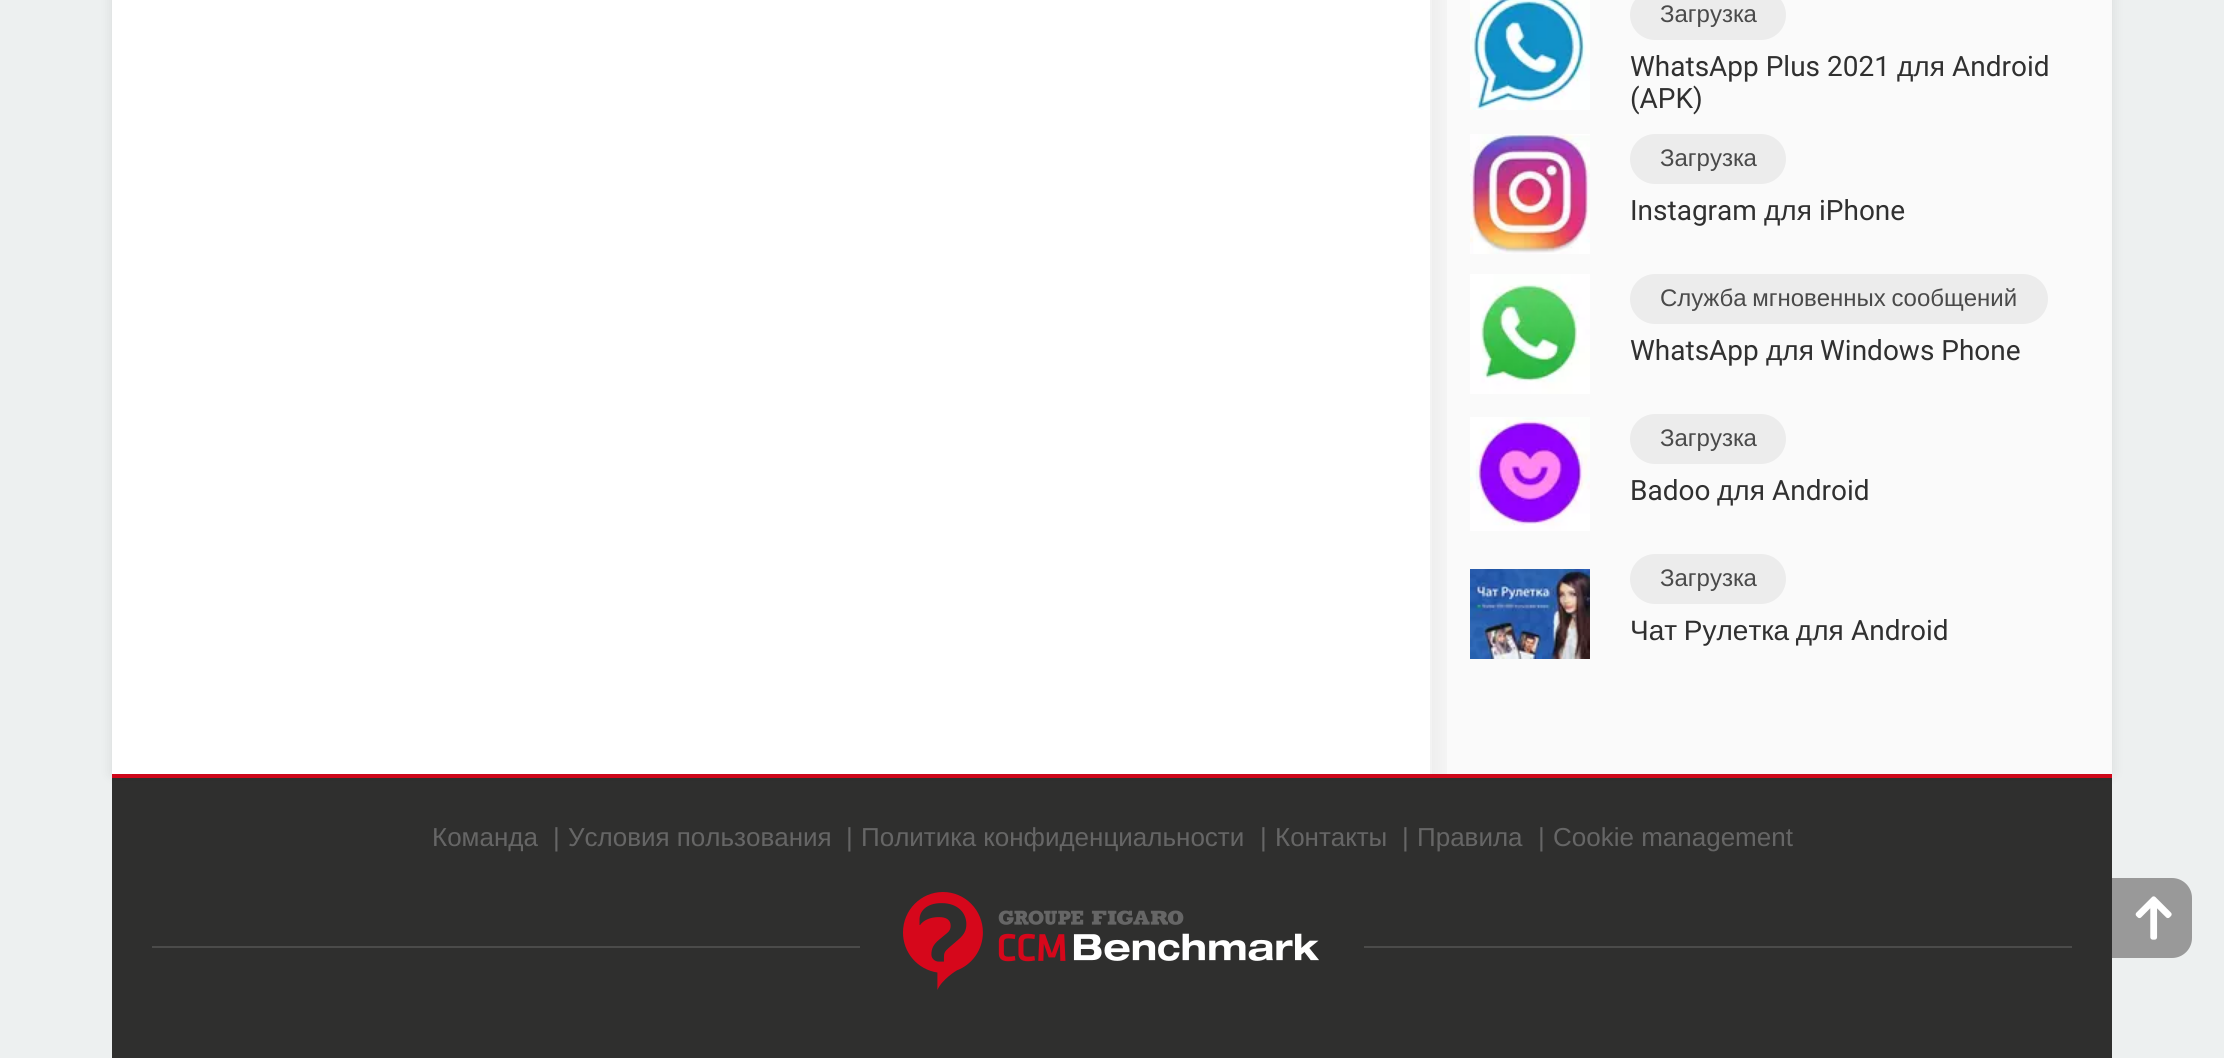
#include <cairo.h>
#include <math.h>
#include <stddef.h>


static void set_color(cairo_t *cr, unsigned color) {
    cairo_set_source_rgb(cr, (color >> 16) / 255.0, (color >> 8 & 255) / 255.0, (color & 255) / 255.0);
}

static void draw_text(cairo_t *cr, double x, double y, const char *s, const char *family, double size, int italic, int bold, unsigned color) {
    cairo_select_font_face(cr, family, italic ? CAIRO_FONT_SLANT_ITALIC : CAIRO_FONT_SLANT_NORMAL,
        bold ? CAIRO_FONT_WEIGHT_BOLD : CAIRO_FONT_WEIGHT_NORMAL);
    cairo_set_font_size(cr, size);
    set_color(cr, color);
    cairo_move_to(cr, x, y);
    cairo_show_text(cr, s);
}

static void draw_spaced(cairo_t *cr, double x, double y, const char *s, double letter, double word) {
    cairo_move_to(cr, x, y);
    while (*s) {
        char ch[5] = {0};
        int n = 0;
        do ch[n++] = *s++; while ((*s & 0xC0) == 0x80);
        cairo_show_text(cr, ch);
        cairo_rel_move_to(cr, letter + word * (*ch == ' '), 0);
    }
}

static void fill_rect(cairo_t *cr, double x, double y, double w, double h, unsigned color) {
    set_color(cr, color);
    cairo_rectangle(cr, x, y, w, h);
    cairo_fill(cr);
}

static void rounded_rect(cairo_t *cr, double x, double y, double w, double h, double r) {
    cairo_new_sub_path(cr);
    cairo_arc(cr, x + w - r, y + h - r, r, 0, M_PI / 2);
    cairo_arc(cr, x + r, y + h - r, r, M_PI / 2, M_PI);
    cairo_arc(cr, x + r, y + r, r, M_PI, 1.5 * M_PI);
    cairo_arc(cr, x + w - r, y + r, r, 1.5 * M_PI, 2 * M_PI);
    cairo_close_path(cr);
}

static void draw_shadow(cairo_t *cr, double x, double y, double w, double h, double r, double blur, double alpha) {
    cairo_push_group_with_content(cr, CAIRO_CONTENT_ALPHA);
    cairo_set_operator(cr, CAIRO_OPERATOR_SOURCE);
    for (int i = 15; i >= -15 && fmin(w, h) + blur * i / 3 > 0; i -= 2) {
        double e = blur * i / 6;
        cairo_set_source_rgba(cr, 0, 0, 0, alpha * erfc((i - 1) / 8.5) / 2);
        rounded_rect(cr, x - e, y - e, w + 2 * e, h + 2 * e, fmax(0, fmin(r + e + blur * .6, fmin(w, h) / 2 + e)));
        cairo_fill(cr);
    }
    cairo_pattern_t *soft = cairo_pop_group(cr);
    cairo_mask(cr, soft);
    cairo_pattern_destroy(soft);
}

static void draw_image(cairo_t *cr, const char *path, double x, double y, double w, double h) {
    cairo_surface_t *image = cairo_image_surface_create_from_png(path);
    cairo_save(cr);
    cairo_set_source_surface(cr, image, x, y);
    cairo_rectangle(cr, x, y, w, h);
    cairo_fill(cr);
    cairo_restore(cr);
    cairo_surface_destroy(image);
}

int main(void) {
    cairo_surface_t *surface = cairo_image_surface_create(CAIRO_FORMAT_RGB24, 2224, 1058);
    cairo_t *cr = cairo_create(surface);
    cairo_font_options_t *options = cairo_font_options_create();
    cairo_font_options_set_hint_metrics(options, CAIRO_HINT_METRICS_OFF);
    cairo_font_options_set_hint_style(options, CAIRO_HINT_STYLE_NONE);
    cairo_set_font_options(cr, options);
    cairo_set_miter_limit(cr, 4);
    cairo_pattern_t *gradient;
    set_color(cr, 0xEDF0F0);
    cairo_paint(cr);
    fill_rect(cr, 112, 778, 2000, 280, 0x2F2F2E);
    fill_rect(cr, 112, 774, 2000, 4, 0xD6071B);
    set_color(cr, 0x000000);
    draw_shadow(cr, 112, -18, 2000, 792, 0, 6, 0.1);
    fill_rect(cr, 112, 0, 1320, 774, 0xFFFFFF);
    fill_rect(cr, 1432, 0, 680, 774, 0xFAFAFA);
    gradient = cairo_pattern_create_linear(1430, -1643, 1460, -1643);
    cairo_pattern_add_color_stop_rgba(gradient, 0, 0, 0, 0, 0.05);
    cairo_pattern_add_color_stop_rgba(gradient, 1, 0, 0, 0, 0);
    cairo_set_source(cr, gradient);
    cairo_pattern_destroy(gradient);
    cairo_rectangle(cr, 1430, 0, 17, 774);
    cairo_fill(cr);
    draw_image(cr, "assets/img1.png", 1470, 0, 120, 110);
    set_color(cr, 0xECECEC);
    rounded_rect(cr, 1630, -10, 156, 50, 25);
    cairo_fill(cr);
    draw_text(cr, 1660, 22, "Загрузка", "Liberation Sans", 24, 0, 0, 0x4A4A4A);
    draw_text(cr, 1630, 76, "WhatsApp Plus 2021", "Roboto", 28, 0, 0, 0x303030);
    draw_text(cr, 1897, 76, "для", "Liberation Sans", 28, 0, 0, 0x303030);
    draw_text(cr, 1952, 76, "Android", "Roboto", 28, 0, 0, 0x303030);
    draw_text(cr, 1630, 108, "(APK)", "Roboto", 28, 0, 0, 0x303030);
    draw_image(cr, "assets/img2.png", 1470, 134, 120, 120);
    set_color(cr, 0xECECEC);
    rounded_rect(cr, 1630, 134, 156, 50, 25);
    cairo_fill(cr);
    draw_text(cr, 1660, 166, "Загрузка", "Liberation Sans", 24, 0, 0, 0x4A4A4A);
    draw_text(cr, 1630, 220, "Instagram", "Roboto", 28, 0, 0, 0x303030);
    draw_text(cr, 1764, 220, "для", "Liberation Sans", 28, 0, 0, 0x303030);
    draw_text(cr, 1819, 220, "iPhone", "Roboto", 28, 0, 0, 0x303030);
    draw_image(cr, "assets/img3.png", 1470, 274, 120, 120);
    set_color(cr, 0xECECEC);
    rounded_rect(cr, 1630, 274, 418, 50, 25);
    cairo_fill(cr);
    cairo_select_font_face(cr, "Liberation Sans", CAIRO_FONT_SLANT_NORMAL, CAIRO_FONT_WEIGHT_NORMAL);
    cairo_set_font_size(cr, 24);
    set_color(cr, 0x4A4A4A);
    draw_spaced(cr, 1660, 306, "Служба мгновенных сообщений", 0, -1);
    draw_text(cr, 1630, 360, "WhatsApp", "Roboto", 28, 0, 0, 0x303030);
    draw_text(cr, 1766, 360, "для", "Liberation Sans", 28, 0, 0, 0x303030);
    draw_text(cr, 1820, 360, "Windows Phone", "Roboto", 28, 0, 0, 0x303030);
    draw_image(cr, "assets/img4.png", 1470, 417, 120, 114);
    set_color(cr, 0xECECEC);
    rounded_rect(cr, 1630, 414, 156, 50, 25);
    cairo_fill(cr);
    draw_text(cr, 1660, 446, "Загрузка", "Liberation Sans", 24, 0, 0, 0x4A4A4A);
    draw_text(cr, 1630, 500, "Badoo", "Roboto", 28, 0, 0, 0x303030);
    draw_text(cr, 1717, 500, "для", "Liberation Sans", 28, 0, 0, 0x303030);
    draw_text(cr, 1772, 500, "Android", "Roboto", 28, 0, 0, 0x303030);
    draw_image(cr, "assets/img5.png", 1470, 569, 120, 90);
    set_color(cr, 0xECECEC);
    rounded_rect(cr, 1630, 554, 156, 50, 25);
    cairo_fill(cr);
    draw_text(cr, 1660, 586, "Загрузка", "Liberation Sans", 24, 0, 0, 0x4A4A4A);
    cairo_set_font_size(cr, 28);
    set_color(cr, 0x303030);
    draw_spaced(cr, 1630, 640, "Чат Рулетка для", 0, -1);
    draw_text(cr, 1851, 640, "Android", "Roboto", 28, 0, 0, 0x303030);
    set_color(cr, 0x999999);
    cairo_new_path(cr);
    cairo_move_to(cr, 2112, 878);
    cairo_line_to(cr, 2172, 878);
    cairo_curve_to(cr, 2183, 878, 2192, 887, 2192, 898);
    cairo_line_to(cr, 2192, 938);
    cairo_curve_to(cr, 2192, 949, 2183, 958, 2172, 958);
    cairo_line_to(cr, 2112, 958);
    cairo_close_path(cr);
    cairo_fill(cr);
    draw_image(cr, "assets/img6.png", 2135, 896, 37, 44);
    draw_text(cr, 432, 846, "Команда", "Liberation Sans", 26, 0, 0, 0x666666);
    draw_text(cr, 553, 846, "|", "Liberation Sans", 26, 0, 0, 0x666666);
    draw_text(cr, 568, 846, "Условия пользования", "Liberation Sans", 26, 0, 0, 0x666666);
    draw_text(cr, 846, 846, "|", "Liberation Sans", 26, 0, 0, 0x666666);
    draw_text(cr, 861, 846, "Политика конфиденциальности", "Liberation Sans", 26, 0, 0, 0x666666);
    draw_text(cr, 1260, 846, "|", "Liberation Sans", 26, 0, 0, 0x666666);
    draw_text(cr, 1275, 846, "Контакты", "Liberation Sans", 26, 0, 0, 0x666666);
    draw_text(cr, 1402, 846, "|", "Liberation Sans", 26, 0, 0, 0x666666);
    draw_text(cr, 1417, 846, "Правила", "Liberation Sans", 26, 0, 0, 0x666666);
    draw_text(cr, 1538, 846, "|", "Liberation Sans", 26, 0, 0, 0x666666);
    draw_text(cr, 1553, 846, "Cookie management", "Liberation Sans", 26, 0, 0, 0x666666);
    fill_rect(cr, 152, 946, 1920, 2, 0x4B4B4A);
    fill_rect(cr, 860, 946, 504, 2, 0x2F2F2E);
    draw_image(cr, "assets/img7.png", 903, 892, 416, 98);
    cairo_surface_write_to_png(surface, "output.png");
    cairo_font_options_destroy(options);
    cairo_destroy(cr);
    cairo_surface_destroy(surface);
    return 0;
}
